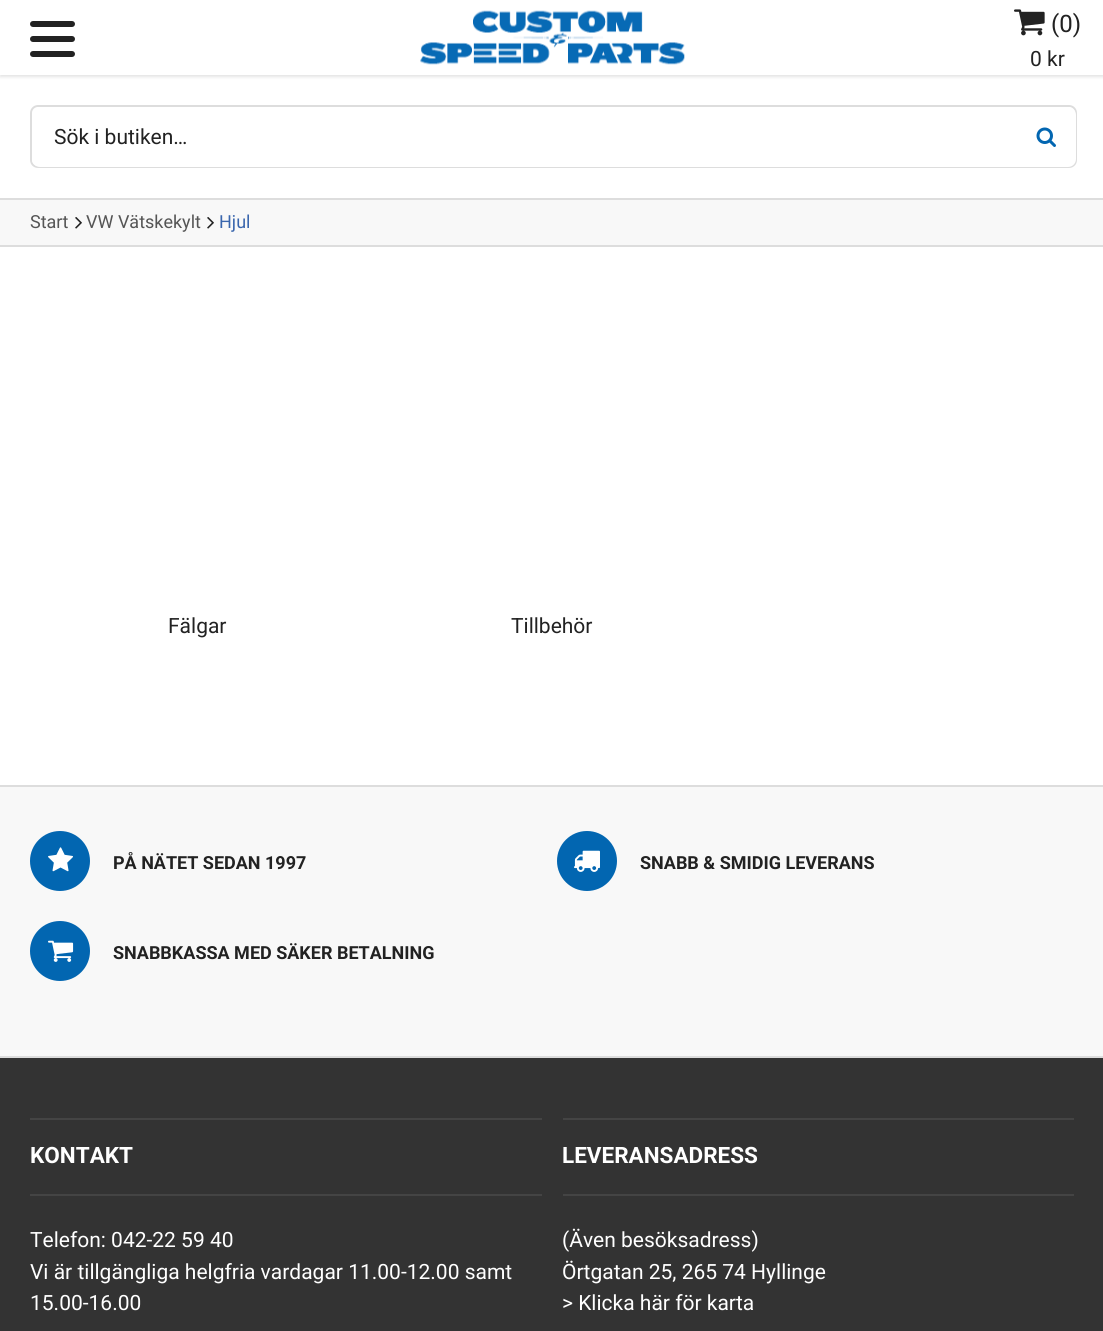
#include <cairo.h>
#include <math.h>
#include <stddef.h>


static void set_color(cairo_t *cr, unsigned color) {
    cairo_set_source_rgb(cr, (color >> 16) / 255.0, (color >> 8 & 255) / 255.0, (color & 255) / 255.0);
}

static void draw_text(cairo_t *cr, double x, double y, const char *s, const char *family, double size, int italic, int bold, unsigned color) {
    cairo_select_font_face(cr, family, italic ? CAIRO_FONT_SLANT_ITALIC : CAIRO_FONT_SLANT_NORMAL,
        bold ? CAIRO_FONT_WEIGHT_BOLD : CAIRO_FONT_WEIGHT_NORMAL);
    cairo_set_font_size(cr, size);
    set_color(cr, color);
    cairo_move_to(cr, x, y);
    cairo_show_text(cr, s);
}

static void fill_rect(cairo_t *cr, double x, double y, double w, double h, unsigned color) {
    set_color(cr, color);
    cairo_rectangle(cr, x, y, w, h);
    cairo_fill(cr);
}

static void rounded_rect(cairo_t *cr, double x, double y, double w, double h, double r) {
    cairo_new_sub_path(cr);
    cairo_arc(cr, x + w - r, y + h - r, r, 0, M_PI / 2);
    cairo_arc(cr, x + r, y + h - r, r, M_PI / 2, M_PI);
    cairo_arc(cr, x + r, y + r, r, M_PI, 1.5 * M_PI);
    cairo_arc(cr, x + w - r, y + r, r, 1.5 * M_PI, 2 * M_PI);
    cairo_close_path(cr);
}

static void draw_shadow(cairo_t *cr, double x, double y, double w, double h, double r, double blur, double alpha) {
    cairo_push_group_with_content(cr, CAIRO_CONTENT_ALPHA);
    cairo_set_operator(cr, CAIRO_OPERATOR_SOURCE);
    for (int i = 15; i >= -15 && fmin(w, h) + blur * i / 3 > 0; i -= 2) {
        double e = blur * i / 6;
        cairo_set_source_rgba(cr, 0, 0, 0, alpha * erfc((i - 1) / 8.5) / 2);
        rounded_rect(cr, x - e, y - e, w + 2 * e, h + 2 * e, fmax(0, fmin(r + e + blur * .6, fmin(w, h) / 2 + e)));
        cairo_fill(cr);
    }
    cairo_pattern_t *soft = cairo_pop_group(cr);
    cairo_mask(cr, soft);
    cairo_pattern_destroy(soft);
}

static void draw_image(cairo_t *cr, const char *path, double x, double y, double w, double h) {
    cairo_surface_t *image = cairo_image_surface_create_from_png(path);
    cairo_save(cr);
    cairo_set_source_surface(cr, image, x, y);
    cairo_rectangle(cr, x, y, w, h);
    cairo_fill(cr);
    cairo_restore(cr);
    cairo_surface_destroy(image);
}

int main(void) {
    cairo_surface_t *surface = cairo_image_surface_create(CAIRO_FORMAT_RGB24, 1103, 1331);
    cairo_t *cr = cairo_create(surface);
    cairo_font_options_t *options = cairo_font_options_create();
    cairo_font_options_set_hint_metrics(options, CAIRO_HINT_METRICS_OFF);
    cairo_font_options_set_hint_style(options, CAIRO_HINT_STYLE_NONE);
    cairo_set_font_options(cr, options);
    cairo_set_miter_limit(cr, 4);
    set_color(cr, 0xFFFFFF);
    cairo_paint(cr);
    cairo_save(cr);
    cairo_rectangle(cr, 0, 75, 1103, 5);
    cairo_clip(cr);
    set_color(cr, 0xDDDDDD);
    draw_shadow(cr, 0, 2, 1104, 75, 0, 1.5, 0.8);
    cairo_restore(cr);
    set_color(cr, 0x222222);
    rounded_rect(cr, 30, 21, 45, 6, 3);
    cairo_fill(cr);
    rounded_rect(cr, 30, 36, 45, 6, 3);
    cairo_fill(cr);
    rounded_rect(cr, 30, 51, 45, 6, 3);
    cairo_fill(cr);
    draw_image(cr, "assets/img1.png", 420, 10, 265, 55);
    draw_image(cr, "assets/img2.png", 1014, 9, 31, 27);
    draw_text(cr, 1051, 32, "(0)", "Roboto", 24, 0, 0, 0x222222);
    draw_text(cr, 1030, 66, "0 kr", "Roboto", 21, 0, 0, 0x222222);
    rounded_rect(cr, 31, 106, 1045, 61, 7);
    set_color(cr, 0xDDDDDD);
    cairo_stroke(cr);
    set_color(cr, 0xFFFFFF);
    rounded_rect(cr, 32, 107, 1044, 60, 8);
    cairo_fill(cr);
    draw_text(cr, 54, 144, "Sök i butiken…", "Roboto", 21, 0, 0, 0x222222);
    draw_image(cr, "assets/img3.png", 1036, 127, 20, 20);
    fill_rect(cr, 0, 200, 1103, 45, 0xF8F8F8);
    fill_rect(cr, 0, 198, 1103, 2, 0xDDDDDD);
    fill_rect(cr, 0, 245, 1103, 2, 0xDDDDDD);
    draw_text(cr, 30, 228, "Start", "Roboto", 18, 0, 0, 0x555555);
    draw_image(cr, "assets/img4.png", 75, 217, 7, 12);
    draw_text(cr, 86, 228, "VW Vätskekylt", "Roboto", 18, 0, 0, 0x555555);
    draw_image(cr, "assets/img4.png", 207, 217, 7, 12);
    draw_text(cr, 219, 228, "Hjul", "Roboto", 18, 0, 0, 0x3A66AD);
    draw_text(cr, 168, 633, "Fälgar", "Roboto", 21, 0, 0, 0x222222);
    draw_text(cr, 511, 633, "Tillbehör", "Roboto", 21, 0, 0, 0x222222);
    fill_rect(cr, 0, 787, 1103, 269, 0xF8F8F8);
    fill_rect(cr, 0, 785, 1103, 2, 0xDDDDDD);
    fill_rect(cr, 0, 1056, 1103, 2, 0xDDDDDD);
    set_color(cr, 0x0266B1);
    cairo_new_path(cr);
    cairo_arc(cr, 60, 861, 30, 0, 2 * M_PI);
    cairo_fill(cr);
    draw_image(cr, "assets/img5.png", 48, 847, 25, 25);
    draw_text(cr, 113, 869, "PÅ NÄTET SEDAN 1997", "Roboto", 18, 0, 1, 0x222222);
    set_color(cr, 0x0266B1);
    cairo_new_path(cr);
    cairo_arc(cr, 587, 861, 30, 0, 2 * M_PI);
    cairo_fill(cr);
    draw_image(cr, "assets/img6.png", 574, 850, 26, 22);
    draw_text(cr, 640, 869, "SNABB & SMIDIG LEVERANS", "Roboto", 18, 0, 1, 0x222222);
    set_color(cr, 0x0266B1);
    cairo_new_path(cr);
    cairo_arc(cr, 60, 951, 30, 0, 2 * M_PI);
    cairo_fill(cr);
    draw_image(cr, "assets/img7.png", 48, 940, 26, 22);
    draw_text(cr, 113, 959, "SNABBKASSA MED SÄKER BETALNING", "Roboto", 18, 0, 1, 0x222222);
    fill_rect(cr, 0, 1058, 1103, 273, 0x333333);
    fill_rect(cr, 30, 1118, 512, 2, 0x444444);
    fill_rect(cr, 30, 1194, 512, 2, 0x444444);
    draw_text(cr, 30, 1163, "KONTAKT", "Roboto", 22.5, 0, 1, 0xFFFFFF);
    draw_text(cr, 30, 1247, "Telefon: 042-22 59 40", "Roboto", 21, 0, 0, 0xFFFFFF);
    draw_text(cr, 30, 1279, "Vi är tillgängliga helgfria vardagar 11.00-12.00 samt", "Roboto", 21, 0, 0, 0xFFFFFF);
    draw_text(cr, 30, 1310, "15.00-16.00", "Roboto", 21, 0, 0, 0xFFFFFF);
    fill_rect(cr, 563, 1118, 511, 2, 0x444444);
    fill_rect(cr, 563, 1194, 511, 2, 0x444444);
    draw_text(cr, 562, 1163, "LEVERANSADRESS", "Roboto", 22.5, 0, 1, 0xFFFFFF);
    draw_text(cr, 562, 1247, "(Även besöksadress)", "Roboto", 21, 0, 0, 0xFFFFFF);
    draw_text(cr, 562, 1279, "Örtgatan 25, 265 74 Hyllinge", "Roboto", 21, 0, 0, 0xFFFFFF);
    draw_text(cr, 562, 1310, "> Klicka här för karta", "Roboto", 21, 0, 0, 0xFFFFFF);
    cairo_surface_write_to_png(surface, "output.png");
    cairo_font_options_destroy(options);
    cairo_destroy(cr);
    cairo_surface_destroy(surface);
    return 0;
}
